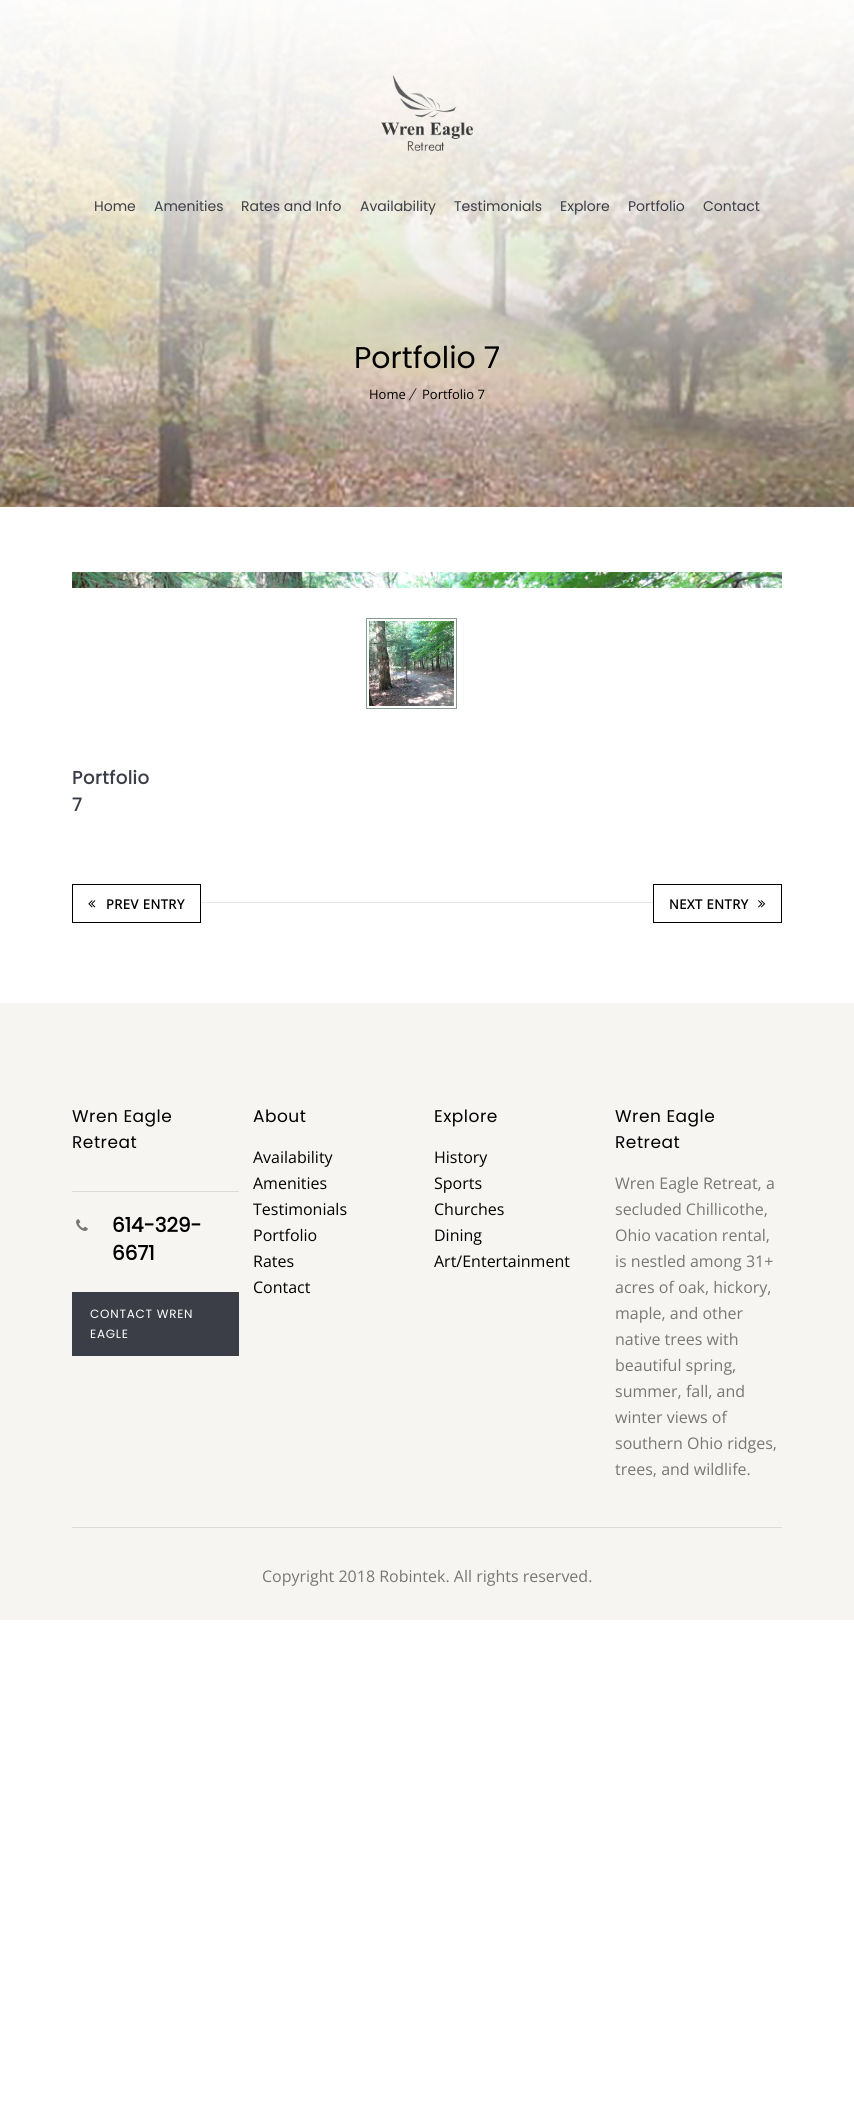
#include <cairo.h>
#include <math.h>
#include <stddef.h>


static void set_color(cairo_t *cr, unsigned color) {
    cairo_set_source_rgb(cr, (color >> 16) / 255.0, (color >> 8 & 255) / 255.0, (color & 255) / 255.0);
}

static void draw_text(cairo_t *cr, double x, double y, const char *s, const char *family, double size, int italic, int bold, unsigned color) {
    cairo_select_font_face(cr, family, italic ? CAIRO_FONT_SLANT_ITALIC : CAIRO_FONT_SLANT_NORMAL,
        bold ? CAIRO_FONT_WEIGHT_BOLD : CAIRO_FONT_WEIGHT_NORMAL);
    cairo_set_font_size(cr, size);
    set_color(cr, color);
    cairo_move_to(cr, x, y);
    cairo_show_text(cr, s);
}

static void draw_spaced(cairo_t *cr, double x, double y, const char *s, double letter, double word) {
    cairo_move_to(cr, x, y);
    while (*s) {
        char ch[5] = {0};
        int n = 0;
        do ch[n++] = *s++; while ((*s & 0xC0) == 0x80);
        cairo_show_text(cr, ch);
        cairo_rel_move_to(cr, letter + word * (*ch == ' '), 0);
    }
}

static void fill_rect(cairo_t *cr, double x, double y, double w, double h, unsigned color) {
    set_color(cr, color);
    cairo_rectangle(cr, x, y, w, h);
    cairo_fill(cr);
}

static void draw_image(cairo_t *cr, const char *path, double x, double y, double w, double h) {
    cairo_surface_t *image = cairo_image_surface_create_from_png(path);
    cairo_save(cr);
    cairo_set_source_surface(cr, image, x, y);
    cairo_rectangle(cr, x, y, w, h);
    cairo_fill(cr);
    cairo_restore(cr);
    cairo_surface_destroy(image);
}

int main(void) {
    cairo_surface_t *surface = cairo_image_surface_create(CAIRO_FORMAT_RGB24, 854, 2126);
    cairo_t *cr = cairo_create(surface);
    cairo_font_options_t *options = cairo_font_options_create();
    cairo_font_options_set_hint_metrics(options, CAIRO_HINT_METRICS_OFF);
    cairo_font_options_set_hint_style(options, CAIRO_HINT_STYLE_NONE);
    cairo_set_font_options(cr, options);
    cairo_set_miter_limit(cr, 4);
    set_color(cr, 0xFFFFFF);
    cairo_paint(cr);
    draw_image(cr, "assets/img2.png", 0, 0, 854, 507);
    draw_image(cr, "assets/img1.png", 381, 75, 92, 76);
    draw_text(cr, 94, 211, "Home", "Poppins", 14, 0, 0, 0x3B3E47);
    draw_text(cr, 154, 211, "Amenities", "Poppins", 14, 0, 0, 0x3B3E47);
    draw_text(cr, 241, 211, "Rates and Info", "Poppins", 14, 0, 0, 0x3B3E47);
    draw_text(cr, 360, 211, "Availability", "Poppins", 14, 0, 0, 0x3B3E47);
    draw_text(cr, 454, 211, "Testimonials", "Poppins", 14, 0, 0, 0x3B3E47);
    draw_text(cr, 560, 211, "Explore", "Poppins", 14, 0, 0, 0x3B3E47);
    draw_text(cr, 628, 211, "Portfolio", "Poppins", 14, 0, 0, 0x3B3E47);
    draw_text(cr, 703, 211, "Contact", "Poppins", 14, 0, 0, 0x3B3E47);
    draw_text(cr, 354, 368, "Portfolio 7", "Poppins", 30, 0, 0, 0x000000);
    draw_text(cr, 369, 399, "Home", "Open Sans", 13, 0, 0, 0x000000);
    cairo_new_path(cr);
    cairo_move_to(cr, 416, 388);
    cairo_line_to(cr, 416.5, 388.5);
    cairo_line_to(cr, 409.5, 400.5);
    cairo_line_to(cr, 409, 400);
    cairo_close_path(cr);
    cairo_fill(cr);
    draw_text(cr, 422, 399, "Portfolio 7", "Open Sans", 13, 0, 0, 0x000000);
    draw_image(cr, "assets/img3.png", 72, 572, 710, 16);
    draw_image(cr, "assets/img4.png", 369, 621, 85, 85);
    cairo_rectangle(cr, 366.5, 618.5, 90, 90);
    set_color(cr, 0x859B8F);
    cairo_set_line_width(cr, 1);
    cairo_stroke(cr);
    cairo_select_font_face(cr, "Poppins", CAIRO_FONT_SLANT_NORMAL, CAIRO_FONT_WEIGHT_BOLD);
    cairo_set_font_size(cr, 18);
    set_color(cr, 0x3B3E47);
    draw_spaced(cr, 72, 784, "Portfolio", 0.5, 0);
    draw_spaced(cr, 72, 811, "7", 0.5, 0);
    cairo_rectangle(cr, 72.5, 884.5, 128, 38);
    set_color(cr, 0x000000);
    cairo_stroke(cr);
    draw_image(cr, "assets/img5.png", 88, 900, 8, 8);
    cairo_select_font_face(cr, "Open Sans", CAIRO_FONT_SLANT_NORMAL, CAIRO_FONT_WEIGHT_BOLD);
    cairo_set_font_size(cr, 13);
    draw_spaced(cr, 106, 909, "PREV ENTRY", 0.5, 0);
    fill_rect(cr, 201, 902, 452, 1, 0xE6E6E6);
    cairo_rectangle(cr, 653.5, 884.5, 128, 38);
    set_color(cr, 0x000000);
    cairo_stroke(cr);
    draw_spaced(cr, 669, 909, "NEXT ENTRY", 0.5, 0);
    draw_image(cr, "assets/img6.png", 758, 900, 8, 8);
    fill_rect(cr, 0, 1003, 854, 617, 0xF7F5F2);
    cairo_select_font_face(cr, "Poppins", CAIRO_FONT_SLANT_NORMAL, CAIRO_FONT_WEIGHT_NORMAL);
    cairo_set_font_size(cr, 17);
    set_color(cr, 0x000000);
    draw_spaced(cr, 72, 1122, "Wren Eagle", 0.5, 0);
    draw_spaced(cr, 72, 1148, "Retreat", 0.5, 0);
    fill_rect(cr, 72, 1191, 167, 1, 0xDDDBD7);
    draw_image(cr, "assets/img7.png", 76, 1219, 12, 12);
    draw_text(cr, 112, 1232, "614-329-", "Poppins", 20, 0, 1, 0x000000);
    draw_text(cr, 112, 1260, "6671", "Poppins", 20, 0, 1, 0x000000);
    fill_rect(cr, 72, 1292, 167, 64, 0x3B3E47);
    cairo_select_font_face(cr, "Poppins", CAIRO_FONT_SLANT_NORMAL, CAIRO_FONT_WEIGHT_NORMAL);
    cairo_set_font_size(cr, 12);
    set_color(cr, 0xFFFFFF);
    draw_spaced(cr, 90, 1318, "CONTACT WREN", 0.75, 0);
    draw_spaced(cr, 90, 1338, "EAGLE", 0.75, 0);
    cairo_set_font_size(cr, 17);
    set_color(cr, 0x000000);
    draw_spaced(cr, 253, 1122, "About", 0.5, 0);
    draw_text(cr, 253, 1163, "Availability", "Open Sans", 16, 0, 0, 0x000000);
    draw_text(cr, 253, 1189, "Amenities", "Open Sans", 16, 0, 0, 0x000000);
    draw_text(cr, 253, 1215, "Testimonials", "Open Sans", 16, 0, 0, 0x000000);
    draw_text(cr, 253, 1241, "Portfolio", "Open Sans", 16, 0, 0, 0x000000);
    draw_text(cr, 253, 1267, "Rates", "Open Sans", 16, 0, 0, 0x000000);
    draw_text(cr, 253, 1293, "Contact", "Open Sans", 16, 0, 0, 0x000000);
    cairo_select_font_face(cr, "Poppins", CAIRO_FONT_SLANT_NORMAL, CAIRO_FONT_WEIGHT_NORMAL);
    cairo_set_font_size(cr, 17);
    draw_spaced(cr, 434, 1122, "Explore", 0.5, 0);
    draw_text(cr, 434, 1163, "History", "Open Sans", 16, 0, 0, 0x000000);
    draw_text(cr, 434, 1189, "Sports", "Open Sans", 16, 0, 0, 0x000000);
    draw_text(cr, 434, 1215, "Churches", "Open Sans", 16, 0, 0, 0x000000);
    draw_text(cr, 434, 1241, "Dining", "Open Sans", 16, 0, 0, 0x000000);
    draw_text(cr, 434, 1267, "Art/Entertainment", "Open Sans", 16, 0, 0, 0x000000);
    cairo_select_font_face(cr, "Poppins", CAIRO_FONT_SLANT_NORMAL, CAIRO_FONT_WEIGHT_NORMAL);
    cairo_set_font_size(cr, 17);
    draw_spaced(cr, 615, 1122, "Wren Eagle", 0.5, 0);
    draw_spaced(cr, 615, 1148, "Retreat", 0.5, 0);
    draw_text(cr, 615, 1189, "Wren Eagle Retreat, a", "Open Sans", 16, 0, 0, 0x777777);
    draw_text(cr, 615, 1215, "secluded Chillicothe,", "Open Sans", 16, 0, 0, 0x777777);
    draw_text(cr, 615, 1241, "Ohio vacation rental,", "Open Sans", 16, 0, 0, 0x777777);
    draw_text(cr, 615, 1267, "is nestled among 31+", "Open Sans", 16, 0, 0, 0x777777);
    draw_text(cr, 615, 1293, "acres of oak, hickory,", "Open Sans", 16, 0, 0, 0x777777);
    draw_text(cr, 615, 1319, "maple, and other", "Open Sans", 16, 0, 0, 0x777777);
    draw_text(cr, 615, 1345, "native trees with", "Open Sans", 16, 0, 0, 0x777777);
    draw_text(cr, 615, 1371, "beautiful spring,", "Open Sans", 16, 0, 0, 0x777777);
    draw_text(cr, 615, 1397, "summer, fall, and", "Open Sans", 16, 0, 0, 0x777777);
    draw_text(cr, 615, 1423, "winter views of", "Open Sans", 16, 0, 0, 0x777777);
    draw_text(cr, 615, 1449, "southern Ohio ridges,", "Open Sans", 16, 0, 0, 0x777777);
    draw_text(cr, 615, 1475, "trees, and wildlife.", "Open Sans", 16, 0, 0, 0x777777);
    fill_rect(cr, 72, 1527, 710, 1, 0xDDDBD7);
    draw_text(cr, 262, 1582, "Copyright 2018 Robintek. All rights reserved.", "Open Sans", 16, 0, 0, 0x777777);
    cairo_surface_write_to_png(surface, "output.png");
    cairo_font_options_destroy(options);
    cairo_destroy(cr);
    cairo_surface_destroy(surface);
    return 0;
}
